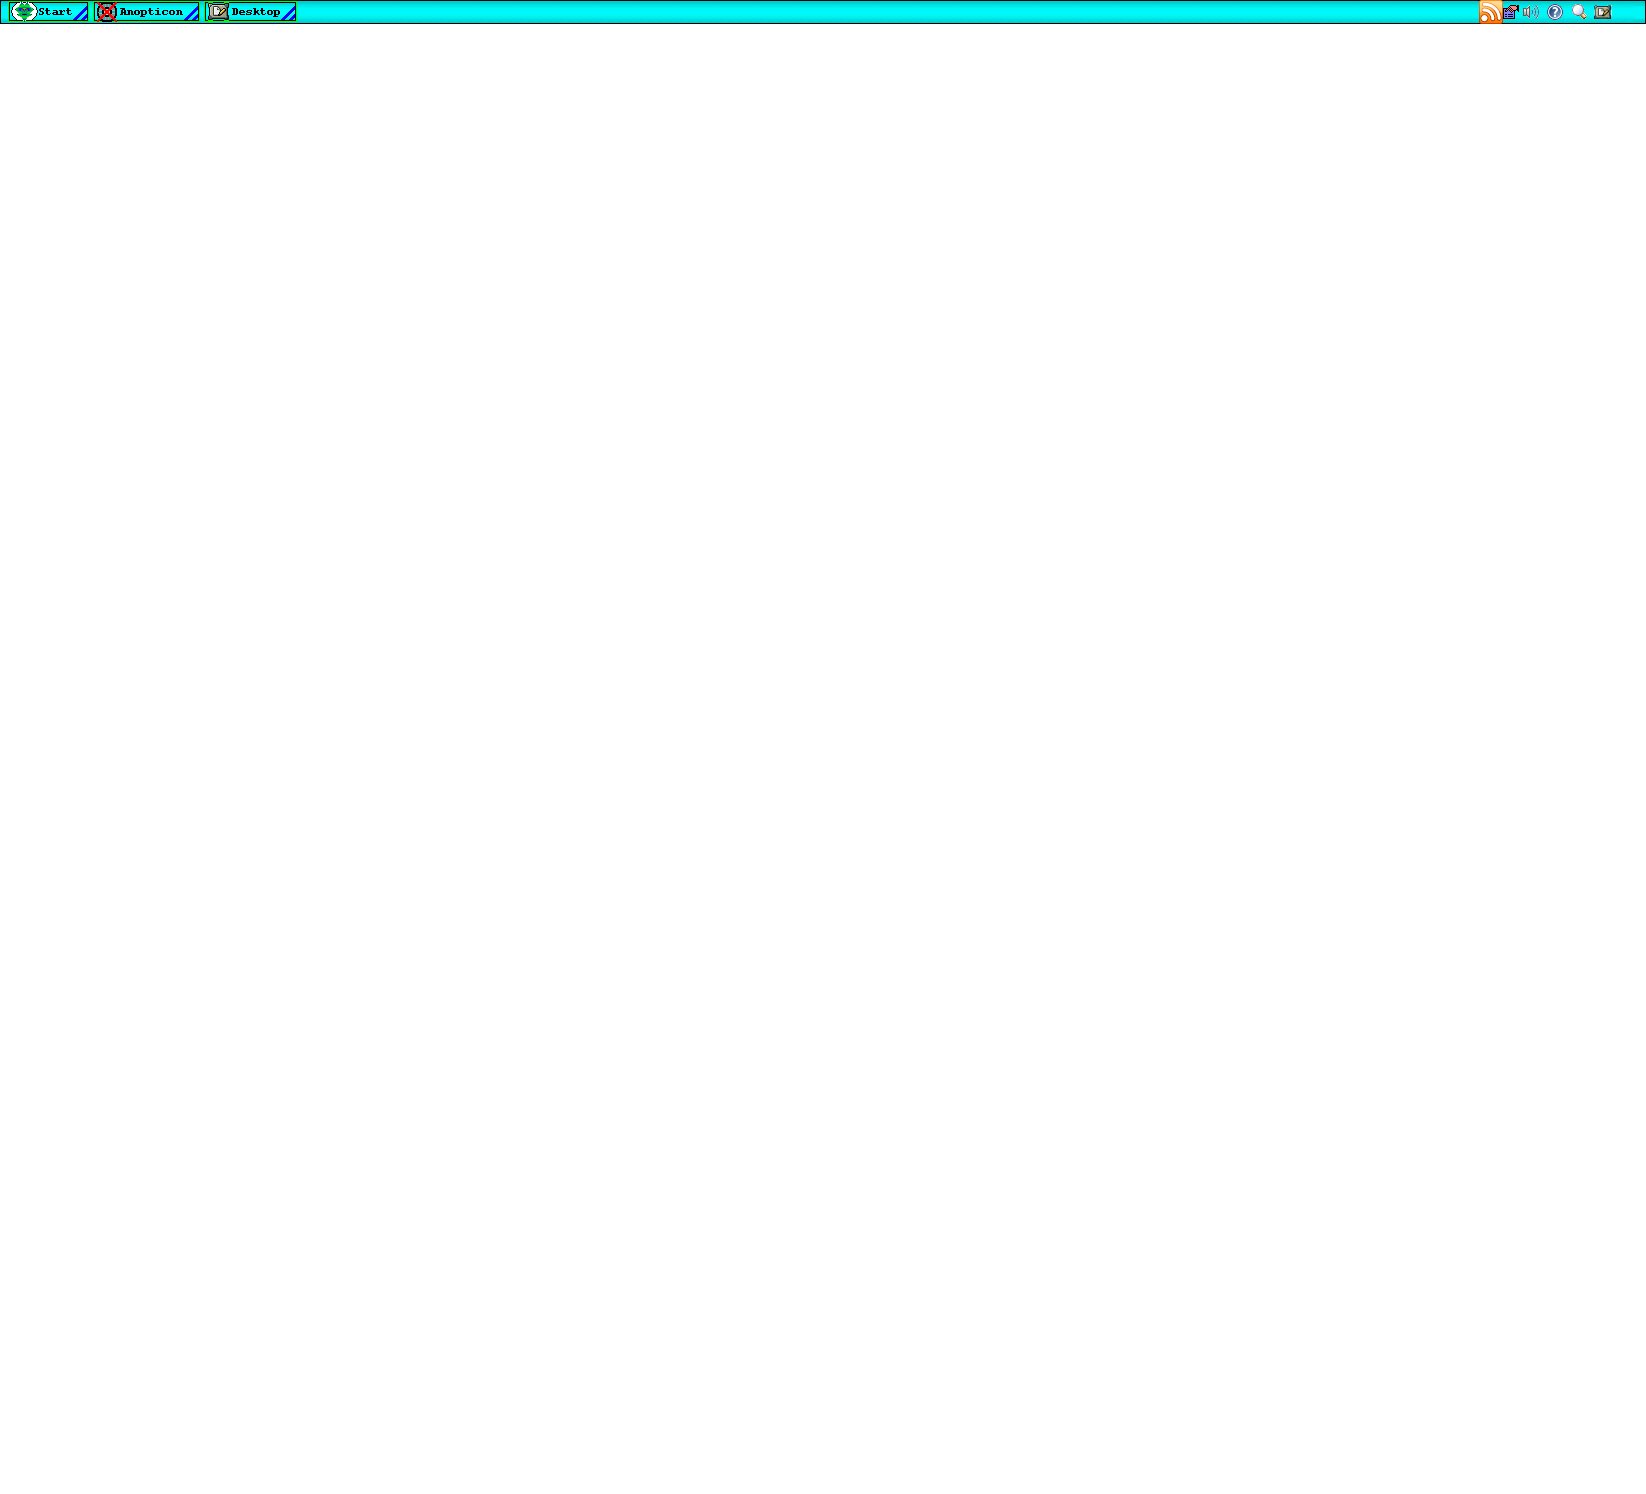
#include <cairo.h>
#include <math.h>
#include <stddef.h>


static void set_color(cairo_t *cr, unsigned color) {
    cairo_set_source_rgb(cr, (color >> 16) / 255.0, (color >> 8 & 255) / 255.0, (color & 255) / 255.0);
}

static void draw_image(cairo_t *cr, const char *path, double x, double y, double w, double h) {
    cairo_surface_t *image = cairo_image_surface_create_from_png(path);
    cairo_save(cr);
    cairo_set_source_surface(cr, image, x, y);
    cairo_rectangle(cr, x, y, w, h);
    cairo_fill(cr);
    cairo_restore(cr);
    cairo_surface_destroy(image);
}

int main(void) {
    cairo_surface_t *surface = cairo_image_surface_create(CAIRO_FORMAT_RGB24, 1646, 1494);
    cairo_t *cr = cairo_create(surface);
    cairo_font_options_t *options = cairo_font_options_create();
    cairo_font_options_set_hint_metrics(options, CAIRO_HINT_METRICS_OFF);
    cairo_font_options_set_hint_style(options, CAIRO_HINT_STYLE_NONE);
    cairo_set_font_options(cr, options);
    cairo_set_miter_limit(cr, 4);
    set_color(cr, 0xFFFFFF);
    cairo_paint(cr);
    draw_image(cr, "assets/img1.png", 0, 0, 11, 24);
    draw_image(cr, "assets/img2.png", 11, 0, 1468, 24);
    draw_image(cr, "assets/img3.png", 8, 1, 81, 21);
    draw_image(cr, "assets/img4.png", 93, 1, 107, 21);
    draw_image(cr, "assets/img5.png", 204, 1, 93, 21);
    draw_image(cr, "assets/img6.png", 1479, 0, 24, 24);
    draw_image(cr, "assets/img7.png", 1479, 0, 24, 24);
    draw_image(cr, "assets/img8.png", 1503, 0, 20, 24);
    draw_image(cr, "assets/img9.png", 1503, 5, 16, 14);
    draw_image(cr, "assets/img8.png", 1523, 0, 20, 24);
    draw_image(cr, "assets/img10.png", 1523, 5, 16, 14);
    draw_image(cr, "assets/img6.png", 1543, 0, 24, 24);
    draw_image(cr, "assets/img11.png", 1547, 4, 16, 16);
    draw_image(cr, "assets/img6.png", 1567, 0, 24, 24);
    draw_image(cr, "assets/img12.png", 1572, 4, 15, 15);
    draw_image(cr, "assets/img6.png", 1591, 0, 24, 24);
    draw_image(cr, "assets/img13.png", 1594, 5, 18, 14);
    draw_image(cr, "assets/img8.png", 1615, 0, 20, 24);
    draw_image(cr, "assets/img14.png", 1635, 0, 11, 24);
    cairo_surface_write_to_png(surface, "output.png");
    cairo_font_options_destroy(options);
    cairo_destroy(cr);
    cairo_surface_destroy(surface);
    return 0;
}
